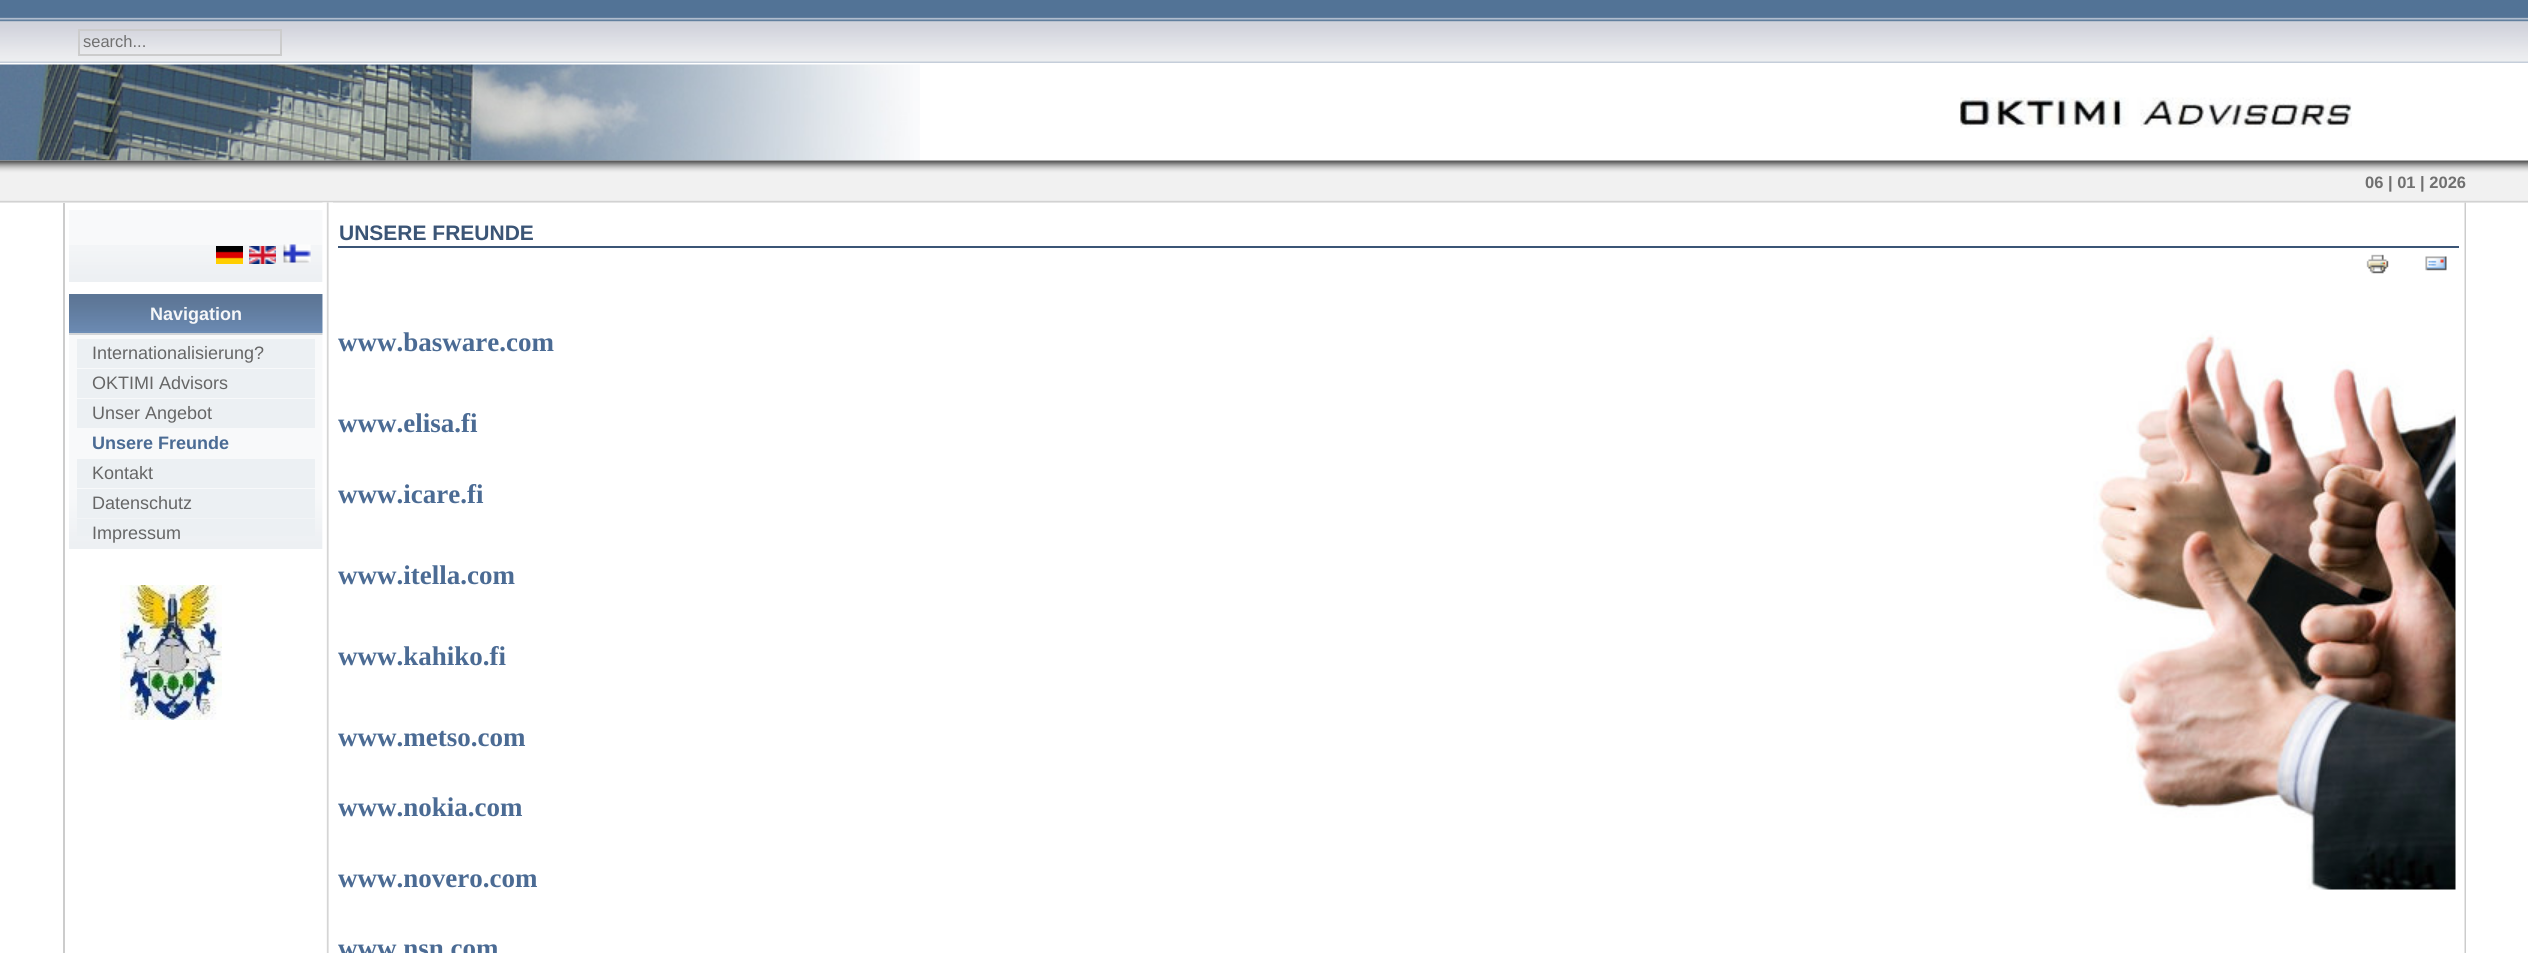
#include <cairo.h>
#include <math.h>
#include <stddef.h>


static void set_color(cairo_t *cr, unsigned color) {
    cairo_set_source_rgb(cr, (color >> 16) / 255.0, (color >> 8 & 255) / 255.0, (color & 255) / 255.0);
}

static void draw_text(cairo_t *cr, double x, double y, const char *s, const char *family, double size, int italic, int bold, unsigned color) {
    cairo_select_font_face(cr, family, italic ? CAIRO_FONT_SLANT_ITALIC : CAIRO_FONT_SLANT_NORMAL,
        bold ? CAIRO_FONT_WEIGHT_BOLD : CAIRO_FONT_WEIGHT_NORMAL);
    cairo_set_font_size(cr, size);
    set_color(cr, color);
    cairo_move_to(cr, x, y);
    cairo_show_text(cr, s);
}

static void fill_rect(cairo_t *cr, double x, double y, double w, double h, unsigned color) {
    set_color(cr, color);
    cairo_rectangle(cr, x, y, w, h);
    cairo_fill(cr);
}

static void draw_image(cairo_t *cr, const char *path, double x, double y, double w, double h) {
    cairo_surface_t *image = cairo_image_surface_create_from_png(path);
    cairo_save(cr);
    cairo_set_source_surface(cr, image, x, y);
    cairo_rectangle(cr, x, y, w, h);
    cairo_fill(cr);
    cairo_restore(cr);
    cairo_surface_destroy(image);
}

int main(void) {
    cairo_surface_t *surface = cairo_image_surface_create(CAIRO_FORMAT_RGB24, 2528, 953);
    cairo_t *cr = cairo_create(surface);
    cairo_font_options_t *options = cairo_font_options_create();
    cairo_font_options_set_hint_metrics(options, CAIRO_HINT_METRICS_OFF);
    cairo_font_options_set_hint_style(options, CAIRO_HINT_STYLE_NONE);
    cairo_set_font_options(cr, options);
    cairo_set_miter_limit(cr, 4);
    set_color(cr, 0xFFFFFF);
    cairo_paint(cr);
    draw_image(cr, "assets/img1.png", 0, 0, 2528, 63);
    cairo_rectangle(cr, 79, 30, 202, 25);
    set_color(cr, 0xCCCCCC);
    cairo_stroke(cr);
    draw_text(cr, 83, 47, "search...", "Liberation Sans", 16.5, 0, 0, 0x707070);
    draw_image(cr, "assets/img2.png", 0, 64, 920, 97);
    draw_image(cr, "assets/img3.png", 1960, 97, 392, 31);
    draw_image(cr, "assets/img4.png", 0, 160, 2528, 43);
    draw_text(cr, 2365, 188, "06 | 01 | 2026", "Liberation Sans", 16.5, 0, 1, 0x707070);
    fill_rect(cr, 63, 203, 2, 750, 0xCCCCCC);
    fill_rect(cr, 69, 210, 254, 72, 0xF8F9FA);
    draw_image(cr, "assets/img5.png", 69, 245, 254, 37);
    draw_image(cr, "assets/img6.png", 216, 246, 27, 18);
    draw_image(cr, "assets/img7.png", 249, 246, 27, 18);
    draw_image(cr, "assets/img8.png", 283, 244, 28, 19);
    fill_rect(cr, 69, 335, 254, 214, 0xF8F9FA);
    draw_image(cr, "assets/img9.png", 69, 486, 254, 63);
    fill_rect(cr, 69, 294, 254, 39, 0x6D8DB5);
    draw_image(cr, "assets/img10.png", 69, 294, 254, 37);
    fill_rect(cr, 69, 333, 255, 2, 0xD2D5D8);
    draw_text(cr, 150, 320, "Navigation", "Liberation Sans", 18, 0, 1, 0xF6F7F9);
    fill_rect(cr, 77, 339, 238, 29, 0xECF0F3);
    draw_text(cr, 92, 359, "Internationalisierung?", "Liberation Sans", 18, 0, 0, 0x666666);
    fill_rect(cr, 77, 369, 238, 29, 0xECF0F3);
    draw_text(cr, 92, 389, "OKTIMI Advisors", "Liberation Sans", 18, 0, 0, 0x666666);
    fill_rect(cr, 77, 399, 238, 29, 0xECF0F3);
    draw_text(cr, 92, 419, "Unser Angebot", "Liberation Sans", 18, 0, 0, 0x666666);
    draw_text(cr, 92, 449, "Unsere Freunde", "Liberation Sans", 18, 0, 1, 0x4B6B94);
    fill_rect(cr, 77, 459, 238, 29, 0xECF0F3);
    draw_text(cr, 92, 479, "Kontakt", "Liberation Sans", 18, 0, 0, 0x666666);
    fill_rect(cr, 77, 489, 238, 29, 0xECF0F3);
    draw_text(cr, 92, 509, "Datenschutz", "Liberation Sans", 18, 0, 0, 0x666666);
    fill_rect(cr, 77, 519, 238, 17, 0xECF0F3);
    draw_text(cr, 92, 539, "Impressum", "Liberation Sans", 18, 0, 0, 0x666666);
    draw_image(cr, "assets/img11.png", 322, 202, 11, 751);
    fill_rect(cr, 338, 246, 2121, 2, 0x3B5576);
    draw_text(cr, 339, 240, "UNSERE FREUNDE", "Liberation Sans", 21, 0, 1, 0x3B5576);
    draw_image(cr, "assets/img12.png", 2366, 254, 23, 20);
    draw_image(cr, "assets/img13.png", 2425, 256, 22, 15);
    draw_text(cr, 338, 351, "www.basware.com", "Liberation Serif", 27, 0, 1, 0x4B6B94);
    draw_image(cr, "assets/img14.png", 2093, 330, 363, 560);
    draw_text(cr, 338, 432, "www.elisa.fi", "Liberation Serif", 27, 0, 1, 0x4B6B94);
    draw_text(cr, 338, 503, "www.icare.fi", "Liberation Serif", 27, 0, 1, 0x4B6B94);
    draw_text(cr, 338, 584, "www.itella.com", "Liberation Serif", 27, 0, 1, 0x4B6B94);
    draw_text(cr, 338, 665, "www.kahiko.fi", "Liberation Serif", 27, 0, 1, 0x4B6B94);
    draw_text(cr, 338, 746, "www.metso.com", "Liberation Serif", 27, 0, 1, 0x4B6B94);
    draw_text(cr, 338, 816, "www.nokia.com", "Liberation Serif", 27, 0, 1, 0x4B6B94);
    draw_text(cr, 338, 887, "www.novero.com", "Liberation Serif", 27, 0, 1, 0x4B6B94);
    draw_text(cr, 338, 957, "www.nsn.com", "Liberation Serif", 27, 0, 1, 0x4B6B94);
    draw_image(cr, "assets/img15.png", 2464, 202, 2, 751);
    draw_image(cr, "assets/img16.png", 120, 585, 102, 135);
    cairo_surface_write_to_png(surface, "output.png");
    cairo_font_options_destroy(options);
    cairo_destroy(cr);
    cairo_surface_destroy(surface);
    return 0;
}
